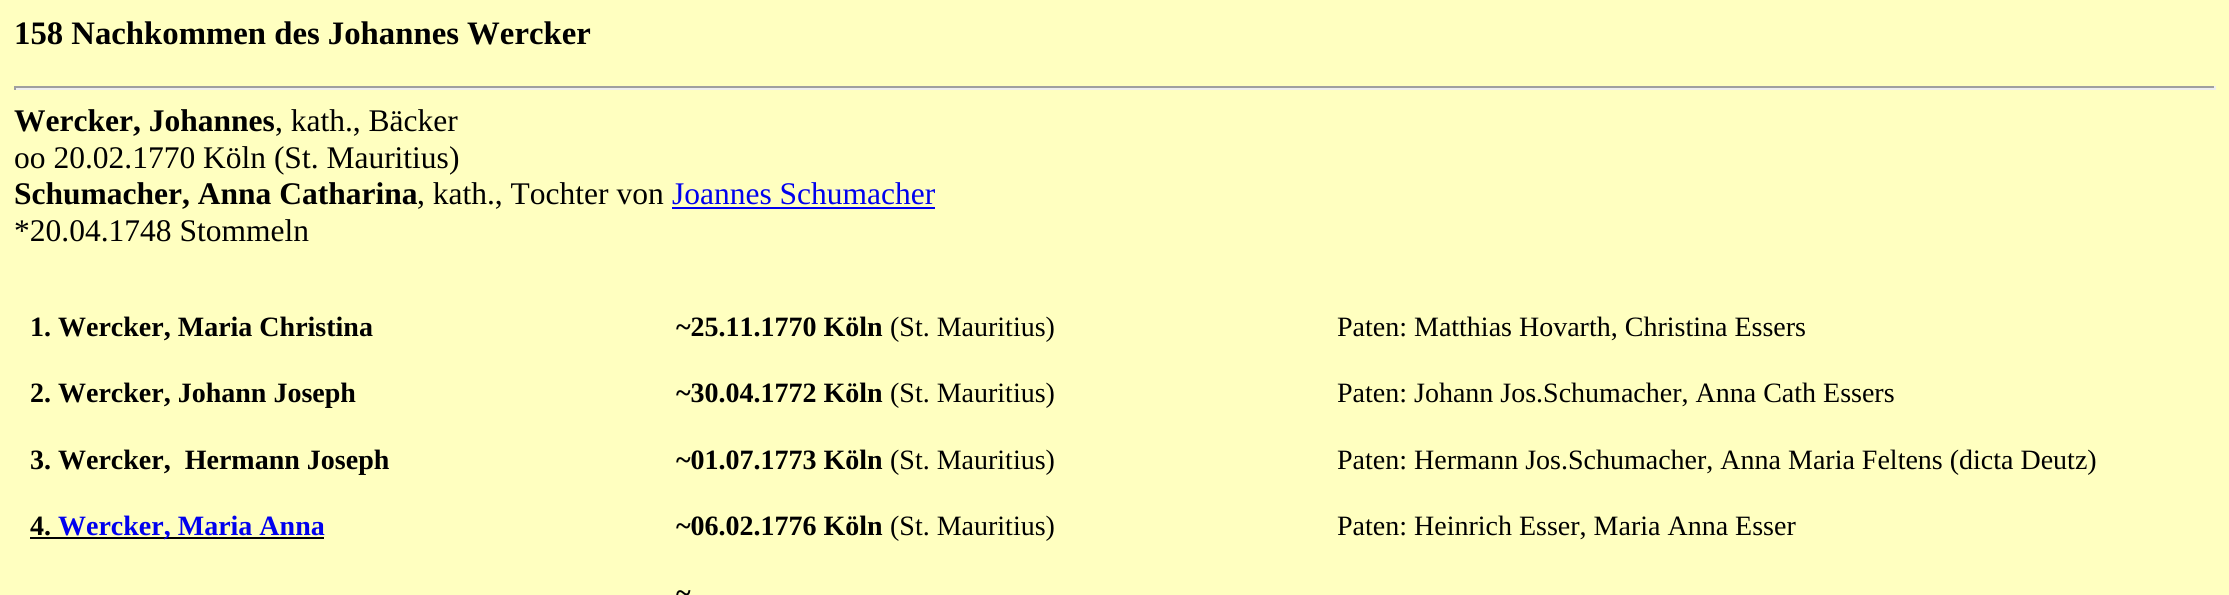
#include <cairo.h>
#include <math.h>
#include <stddef.h>


static void set_color(cairo_t *cr, unsigned color) {
    cairo_set_source_rgb(cr, (color >> 16) / 255.0, (color >> 8 & 255) / 255.0, (color & 255) / 255.0);
}

static void draw_text(cairo_t *cr, double x, double y, const char *s, const char *family, double size, int italic, int bold, unsigned color) {
    cairo_select_font_face(cr, family, italic ? CAIRO_FONT_SLANT_ITALIC : CAIRO_FONT_SLANT_NORMAL,
        bold ? CAIRO_FONT_WEIGHT_BOLD : CAIRO_FONT_WEIGHT_NORMAL);
    cairo_set_font_size(cr, size);
    set_color(cr, color);
    cairo_move_to(cr, x, y);
    cairo_show_text(cr, s);
}

static void fill_rect(cairo_t *cr, double x, double y, double w, double h, unsigned color) {
    set_color(cr, color);
    cairo_rectangle(cr, x, y, w, h);
    cairo_fill(cr);
}

int main(void) {
    cairo_surface_t *surface = cairo_image_surface_create(CAIRO_FORMAT_RGB24, 2229, 595);
    cairo_t *cr = cairo_create(surface);
    cairo_font_options_t *options = cairo_font_options_create();
    cairo_font_options_set_hint_metrics(options, CAIRO_HINT_METRICS_OFF);
    cairo_font_options_set_hint_style(options, CAIRO_HINT_STYLE_NONE);
    cairo_set_font_options(cr, options);
    cairo_set_miter_limit(cr, 4);
    set_color(cr, 0xFFFFC0);
    cairo_paint(cr);
    draw_text(cr, 14, 44, "158 Nachkommen des Johannes Wercker", "Liberation Serif", 32.75, 0, 1, 0x000000);
    fill_rect(cr, 14, 86, 2202, 2, 0x9F9F9F);
    fill_rect(cr, 2214, 86, 2, 4, 0xEEEEEE);
    fill_rect(cr, 14, 88, 2202, 2, 0xEEEEEE);
    fill_rect(cr, 14, 86, 2, 4, 0x9F9F9F);
    draw_text(cr, 14, 131, "Wercker, Johannes", "Liberation Serif", 31.5, 0, 1, 0x000000);
    draw_text(cr, 275, 131, ", kath., Bäcker", "Liberation Serif", 31.5, 0, 0, 0x000000);
    draw_text(cr, 14, 168, "oo 20.02.1770 Köln (St. Mauritius)", "Liberation Serif", 31.5, 0, 0, 0x000000);
    draw_text(cr, 14, 204, "Schumacher, Anna Catharina", "Liberation Serif", 31.5, 0, 1, 0x000000);
    draw_text(cr, 417, 204, ", kath., Tochter von", "Liberation Serif", 31.5, 0, 0, 0x000000);
    draw_text(cr, 672, 204, "Joannes Schumacher", "Liberation Serif", 31.5, 0, 0, 0x0000EE);
    fill_rect(cr, 672, 207, 263, 2, 0x0000EE);
    draw_text(cr, 14, 241, "*20.04.1748 Stommeln", "Liberation Serif", 31.5, 0, 0, 0x000000);
    draw_text(cr, 30, 336, "1. Wercker, Maria Christina", "Liberation Serif", 28, 0, 1, 0x000000);
    draw_text(cr, 676, 336, "~25.11.1770 Köln", "Liberation Serif", 28, 0, 1, 0x000000);
    draw_text(cr, 890, 336, "(St. Mauritius)", "Liberation Serif", 28, 0, 0, 0x000000);
    draw_text(cr, 1337, 336, "Paten: Matthias Hovarth, Christina Essers", "Liberation Serif", 28, 0, 0, 0x000000);
    draw_text(cr, 30, 402, "2. Wercker, Johann Joseph", "Liberation Serif", 28, 0, 1, 0x000000);
    draw_text(cr, 676, 402, "~30.04.1772 Köln", "Liberation Serif", 28, 0, 1, 0x000000);
    draw_text(cr, 890, 402, "(St. Mauritius)", "Liberation Serif", 28, 0, 0, 0x000000);
    draw_text(cr, 1337, 402, "Paten: Johann Jos.Schumacher, Anna Cath Essers", "Liberation Serif", 28, 0, 0, 0x000000);
    draw_text(cr, 30, 469, "3. Wercker,  Hermann Joseph", "Liberation Serif", 28, 0, 1, 0x000000);
    draw_text(cr, 676, 469, "~01.07.1773 Köln", "Liberation Serif", 28, 0, 1, 0x000000);
    draw_text(cr, 890, 469, "(St. Mauritius)", "Liberation Serif", 28, 0, 0, 0x000000);
    draw_text(cr, 1337, 469, "Paten: Hermann Jos.Schumacher, Anna Maria Feltens (dicta Deutz)", "Liberation Serif", 28, 0, 0, 0x000000);
    draw_text(cr, 30, 535, "4.", "Liberation Serif", 28, 0, 1, 0x000000);
    fill_rect(cr, 30, 537, 294, 2, 0x000000);
    draw_text(cr, 58, 535, "Wercker, Maria Anna", "Liberation Serif", 28, 0, 1, 0x0000EE);
    draw_text(cr, 676, 535, "~06.02.1776 Köln", "Liberation Serif", 28, 0, 1, 0x000000);
    draw_text(cr, 890, 535, "(St. Mauritius)", "Liberation Serif", 28, 0, 0, 0x000000);
    draw_text(cr, 1337, 535, "Paten: Heinrich Esser, Maria Anna Esser", "Liberation Serif", 28, 0, 0, 0x000000);
    draw_text(cr, 676, 602, "~", "Liberation Serif", 28, 0, 1, 0x000000);
    cairo_surface_write_to_png(surface, "output.png");
    cairo_font_options_destroy(options);
    cairo_destroy(cr);
    cairo_surface_destroy(surface);
    return 0;
}
